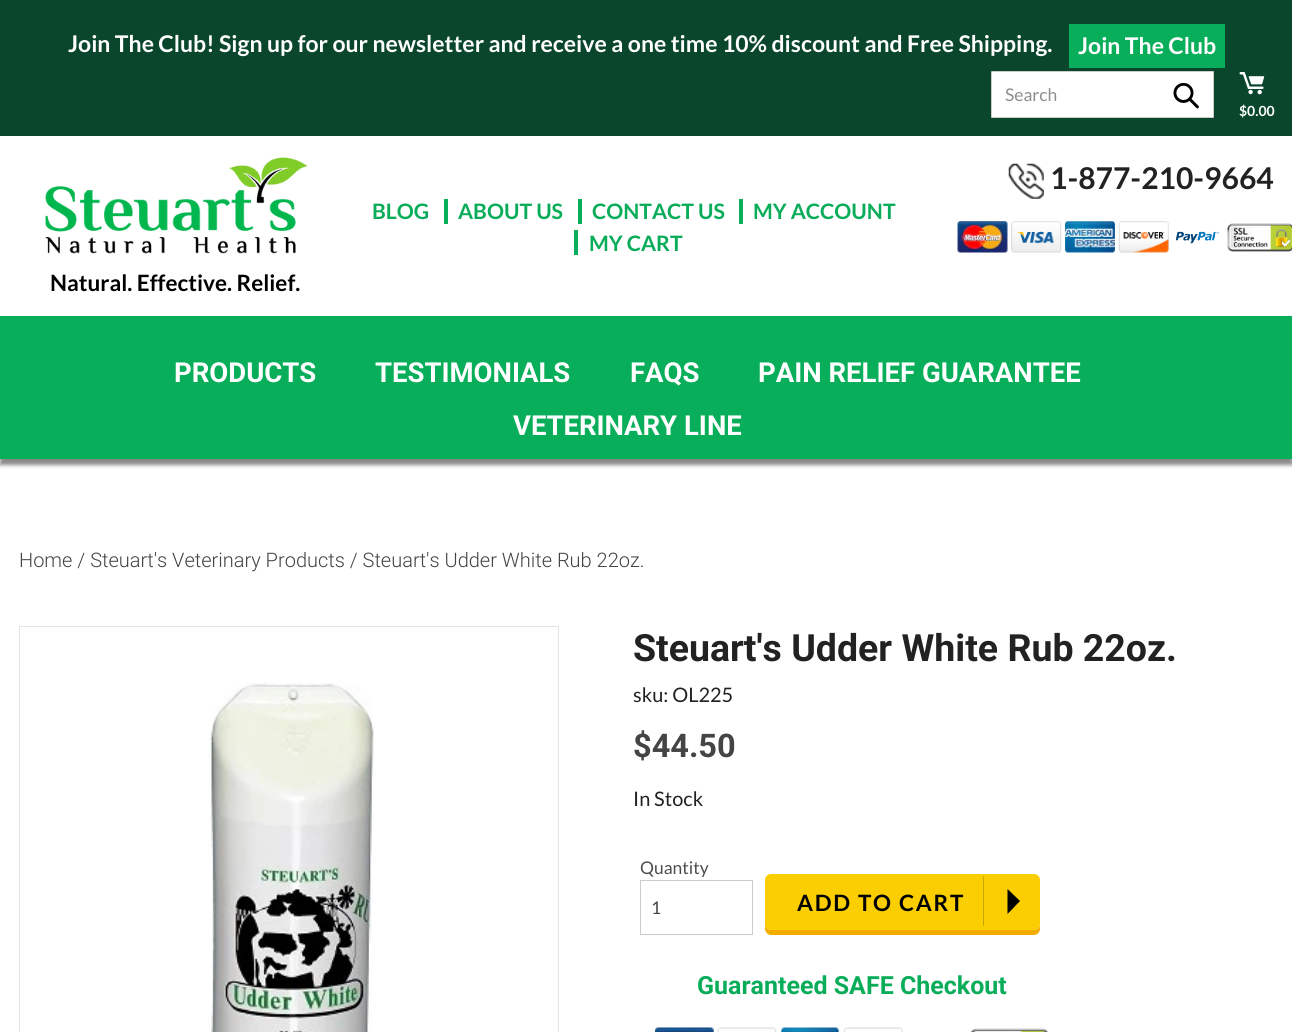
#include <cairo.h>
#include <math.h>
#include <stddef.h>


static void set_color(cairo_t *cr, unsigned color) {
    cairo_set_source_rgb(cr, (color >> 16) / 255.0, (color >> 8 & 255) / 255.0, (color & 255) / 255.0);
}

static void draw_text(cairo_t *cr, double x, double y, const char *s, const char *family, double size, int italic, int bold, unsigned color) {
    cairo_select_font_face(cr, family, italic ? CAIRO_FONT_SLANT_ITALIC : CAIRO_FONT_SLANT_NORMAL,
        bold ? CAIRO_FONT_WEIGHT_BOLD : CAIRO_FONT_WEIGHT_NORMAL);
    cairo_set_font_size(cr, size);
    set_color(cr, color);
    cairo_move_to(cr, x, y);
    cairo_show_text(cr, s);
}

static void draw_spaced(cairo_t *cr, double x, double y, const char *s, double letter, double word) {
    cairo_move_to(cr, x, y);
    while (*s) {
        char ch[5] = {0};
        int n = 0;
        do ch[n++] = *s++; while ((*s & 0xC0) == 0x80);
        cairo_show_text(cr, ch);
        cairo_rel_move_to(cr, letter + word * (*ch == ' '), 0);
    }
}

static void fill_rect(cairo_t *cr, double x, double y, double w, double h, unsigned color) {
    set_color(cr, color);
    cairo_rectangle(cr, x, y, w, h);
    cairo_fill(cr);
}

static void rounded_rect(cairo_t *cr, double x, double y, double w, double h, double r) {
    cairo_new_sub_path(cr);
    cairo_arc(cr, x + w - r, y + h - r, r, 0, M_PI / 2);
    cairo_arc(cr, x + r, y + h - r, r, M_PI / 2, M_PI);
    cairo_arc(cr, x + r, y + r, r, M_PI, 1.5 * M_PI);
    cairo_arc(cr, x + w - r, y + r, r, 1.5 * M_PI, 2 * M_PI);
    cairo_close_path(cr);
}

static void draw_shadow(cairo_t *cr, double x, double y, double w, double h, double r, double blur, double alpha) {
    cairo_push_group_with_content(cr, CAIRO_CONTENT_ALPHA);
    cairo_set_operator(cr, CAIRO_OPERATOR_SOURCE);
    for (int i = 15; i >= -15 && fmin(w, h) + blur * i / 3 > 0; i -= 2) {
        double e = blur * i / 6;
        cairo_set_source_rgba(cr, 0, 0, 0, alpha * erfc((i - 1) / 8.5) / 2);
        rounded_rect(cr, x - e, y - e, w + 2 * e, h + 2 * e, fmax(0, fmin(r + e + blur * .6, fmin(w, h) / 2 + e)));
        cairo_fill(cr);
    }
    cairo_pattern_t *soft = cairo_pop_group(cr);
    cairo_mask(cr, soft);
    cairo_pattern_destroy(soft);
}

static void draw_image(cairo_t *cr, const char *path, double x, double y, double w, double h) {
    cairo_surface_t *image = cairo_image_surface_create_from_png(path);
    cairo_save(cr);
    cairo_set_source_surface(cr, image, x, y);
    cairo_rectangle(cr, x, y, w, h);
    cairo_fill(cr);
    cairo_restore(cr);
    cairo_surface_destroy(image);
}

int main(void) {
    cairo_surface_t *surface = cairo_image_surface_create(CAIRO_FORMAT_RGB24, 1292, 1032);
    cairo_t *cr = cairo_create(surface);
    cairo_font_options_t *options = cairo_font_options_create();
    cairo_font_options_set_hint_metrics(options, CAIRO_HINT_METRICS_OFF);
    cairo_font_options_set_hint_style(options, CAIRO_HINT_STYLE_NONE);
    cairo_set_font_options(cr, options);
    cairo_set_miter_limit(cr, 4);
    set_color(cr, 0xFFFFFF);
    cairo_paint(cr);
    fill_rect(cr, 0, 0, 1292, 136, 0x09462B);
    draw_text(cr, 68, 52, "Join The Club! Sign up for our newsletter and receive a one time 10% discount and Free Shipping.", "Lato", 23, 0, 1, 0xFFFFFF);
    fill_rect(cr, 1069, 24, 156, 44, 0x08AE5A);
    draw_text(cr, 1078, 54, "Join The Club", "Lato", 23, 0, 1, 0xFFFFFF);
    rounded_rect(cr, 991.5, 71.5, 222, 46, 0.5);
    cairo_fill_preserve(cr);
    set_color(cr, 0xCCCCCC);
    cairo_set_line_width(cr, 1);
    cairo_stroke(cr);
    draw_text(cr, 1005, 101, "Search", "Lato", 17.5, 0, 0, 0x8B8E90);
    draw_image(cr, "assets/img1.png", 1173, 82, 26, 27);
    draw_image(cr, "assets/img2.png", 1239, 72, 26, 23);
    draw_text(cr, 1239, 116, "$0.00", "Lato", 14, 0, 1, 0xFFFFFF);
    draw_image(cr, "assets/img3.png", 1008, 163, 36, 36);
    draw_text(cr, 1050, 189, "1-877-210-9664", "Lato", 30, 0, 1, 0x222222);
    draw_image(cr, "assets/img4.png", 957, 221, 51, 32);
    draw_image(cr, "assets/img5.png", 1011, 221, 51, 32);
    draw_image(cr, "assets/img6.png", 1065, 221, 50, 32);
    draw_image(cr, "assets/img7.png", 1118, 221, 51, 32);
    draw_image(cr, "assets/img8.png", 1176, 231, 44, 13);
    draw_image(cr, "assets/img9.png", 1227, 223, 65, 29);
    draw_text(cr, 372, 219, "BLOG", "Lato", 21.25, 0, 1, 0x09AD59);
    fill_rect(cr, 444, 199, 4, 25, 0x08AE5A);
    draw_text(cr, 458, 219, "ABOUT US", "Lato", 21.25, 0, 1, 0x09AD59);
    fill_rect(cr, 578, 199, 4, 25, 0x08AE5A);
    draw_text(cr, 592, 219, "CONTACT US", "Lato", 21.25, 0, 1, 0x09AD59);
    fill_rect(cr, 739, 199, 4, 25, 0x08AE5A);
    draw_text(cr, 753, 219, "MY ACCOUNT", "Lato", 21.25, 0, 1, 0x09AD59);
    fill_rect(cr, 574, 230, 4, 25, 0x08AE5A);
    draw_text(cr, 589, 251, "MY CART", "Lato", 21.25, 0, 1, 0x09AD59);
    draw_image(cr, "assets/img10.png", 45, 157, 263, 97);
    draw_text(cr, 50, 291, "Natural. Effective. Relief.", "Lato", 22.5, 0, 1, 0x000000);
    set_color(cr, 0x888888);
    draw_shadow(cr, 0, 323, 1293, 142, 0, 2, 1);
    fill_rect(cr, 0, 316, 1292, 143, 0x08AE5A);
    draw_text(cr, 174, 382, "PRODUCTS", "Roboto", 27.5, 0, 1, 0xFFFFFF);
    draw_text(cr, 375, 382, "TESTIMONIALS", "Roboto", 27.5, 0, 1, 0xFFFFFF);
    draw_text(cr, 630, 382, "FAQS", "Roboto", 27.5, 0, 1, 0xFFFFFF);
    draw_text(cr, 758, 382, "PAIN RELIEF GUARANTEE", "Roboto", 27.5, 0, 1, 0xFFFFFF);
    draw_text(cr, 513, 435, "VETERINARY LINE", "Roboto", 27.5, 0, 1, 0xFFFFFF);
    draw_text(cr, 19, 567, "Home / Steuart's Veterinary Products / Steuart's Udder White Rub 22oz.", "Roboto Light", 20, 0, 0, 0x444444);
    cairo_rectangle(cr, 19.5, 626.5, 539, 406);
    set_color(cr, 0xE5E5E5);
    cairo_stroke(cr);
    draw_image(cr, "assets/img11.png", 208, 683, 166, 349);
    draw_text(cr, 633, 661, "Steuart's Udder White Rub 22oz.", "Roboto", 37.5, 0, 1, 0x222222);
    draw_text(cr, 633, 702, "sku: OL225", "Lato", 20, 0, 0, 0x222222);
    draw_text(cr, 633, 757, "$44.50", "Roboto", 32.5, 0, 1, 0x444444);
    draw_text(cr, 633, 806, "In Stock", "Lato", 20, 0, 0, 0x222222);
    draw_text(cr, 640, 874, "Quantity", "Lato", 17.5, 0, 0, 0x4D4D4D);
    cairo_rectangle(cr, 640.5, 880.5, 112, 54);
    set_color(cr, 0xCCCCCC);
    cairo_stroke(cr);
    draw_text(cr, 651, 914, "1", "Lato", 17.5, 0, 0, 0x444444);
    set_color(cr, 0xF3AC00);
    cairo_new_path(cr);
    cairo_move_to(cr, 765, 924);
    cairo_line_to(cr, 765, 929);
    cairo_curve_to(cr, 765, 932, 768, 935, 771, 935);
    cairo_line_to(cr, 1034, 935);
    cairo_curve_to(cr, 1037, 935, 1040, 932, 1040, 929);
    cairo_line_to(cr, 1040, 924);
    cairo_curve_to(cr, 1040, 927, 1037, 930, 1034, 930);
    cairo_line_to(cr, 771, 930);
    cairo_curve_to(cr, 768, 930, 765, 927, 765, 924);
    cairo_close_path(cr);
    cairo_fill(cr);
    set_color(cr, 0xFACE01);
    rounded_rect(cr, 765, 874, 275, 56, 6);
    cairo_fill(cr);
    cairo_select_font_face(cr, "Lato", CAIRO_FONT_SLANT_NORMAL, CAIRO_FONT_WEIGHT_BOLD);
    cairo_set_font_size(cr, 22.5);
    set_color(cr, 0x000000);
    draw_spaced(cr, 797, 911, "ADD TO CART", 1.75, 0);
    fill_rect(cr, 983, 876, 1, 50, 0xC9A80F);
    set_color(cr, 0x000000);
    cairo_new_path(cr);
    cairo_move_to(cr, 1007.5, 914);
    cairo_line_to(cr, 1007.5, 889);
    cairo_line_to(cr, 1020, 901);
    cairo_close_path(cr);
    cairo_fill(cr);
    draw_text(cr, 697, 994, "Guaranteed SAFE Checkout", "Roboto", 25, 0, 1, 0x09AD59);
    draw_image(cr, "assets/img12.png", 655, 1027, 59, 5);
    draw_image(cr, "assets/img13.png", 717, 1027, 60, 5);
    draw_image(cr, "assets/img14.png", 781, 1027, 58, 5);
    draw_image(cr, "assets/img15.png", 843, 1027, 60, 5);
    draw_image(cr, "assets/img16.png", 970, 1028, 79, 4);
    cairo_surface_write_to_png(surface, "output.png");
    cairo_font_options_destroy(options);
    cairo_destroy(cr);
    cairo_surface_destroy(surface);
    return 0;
}
